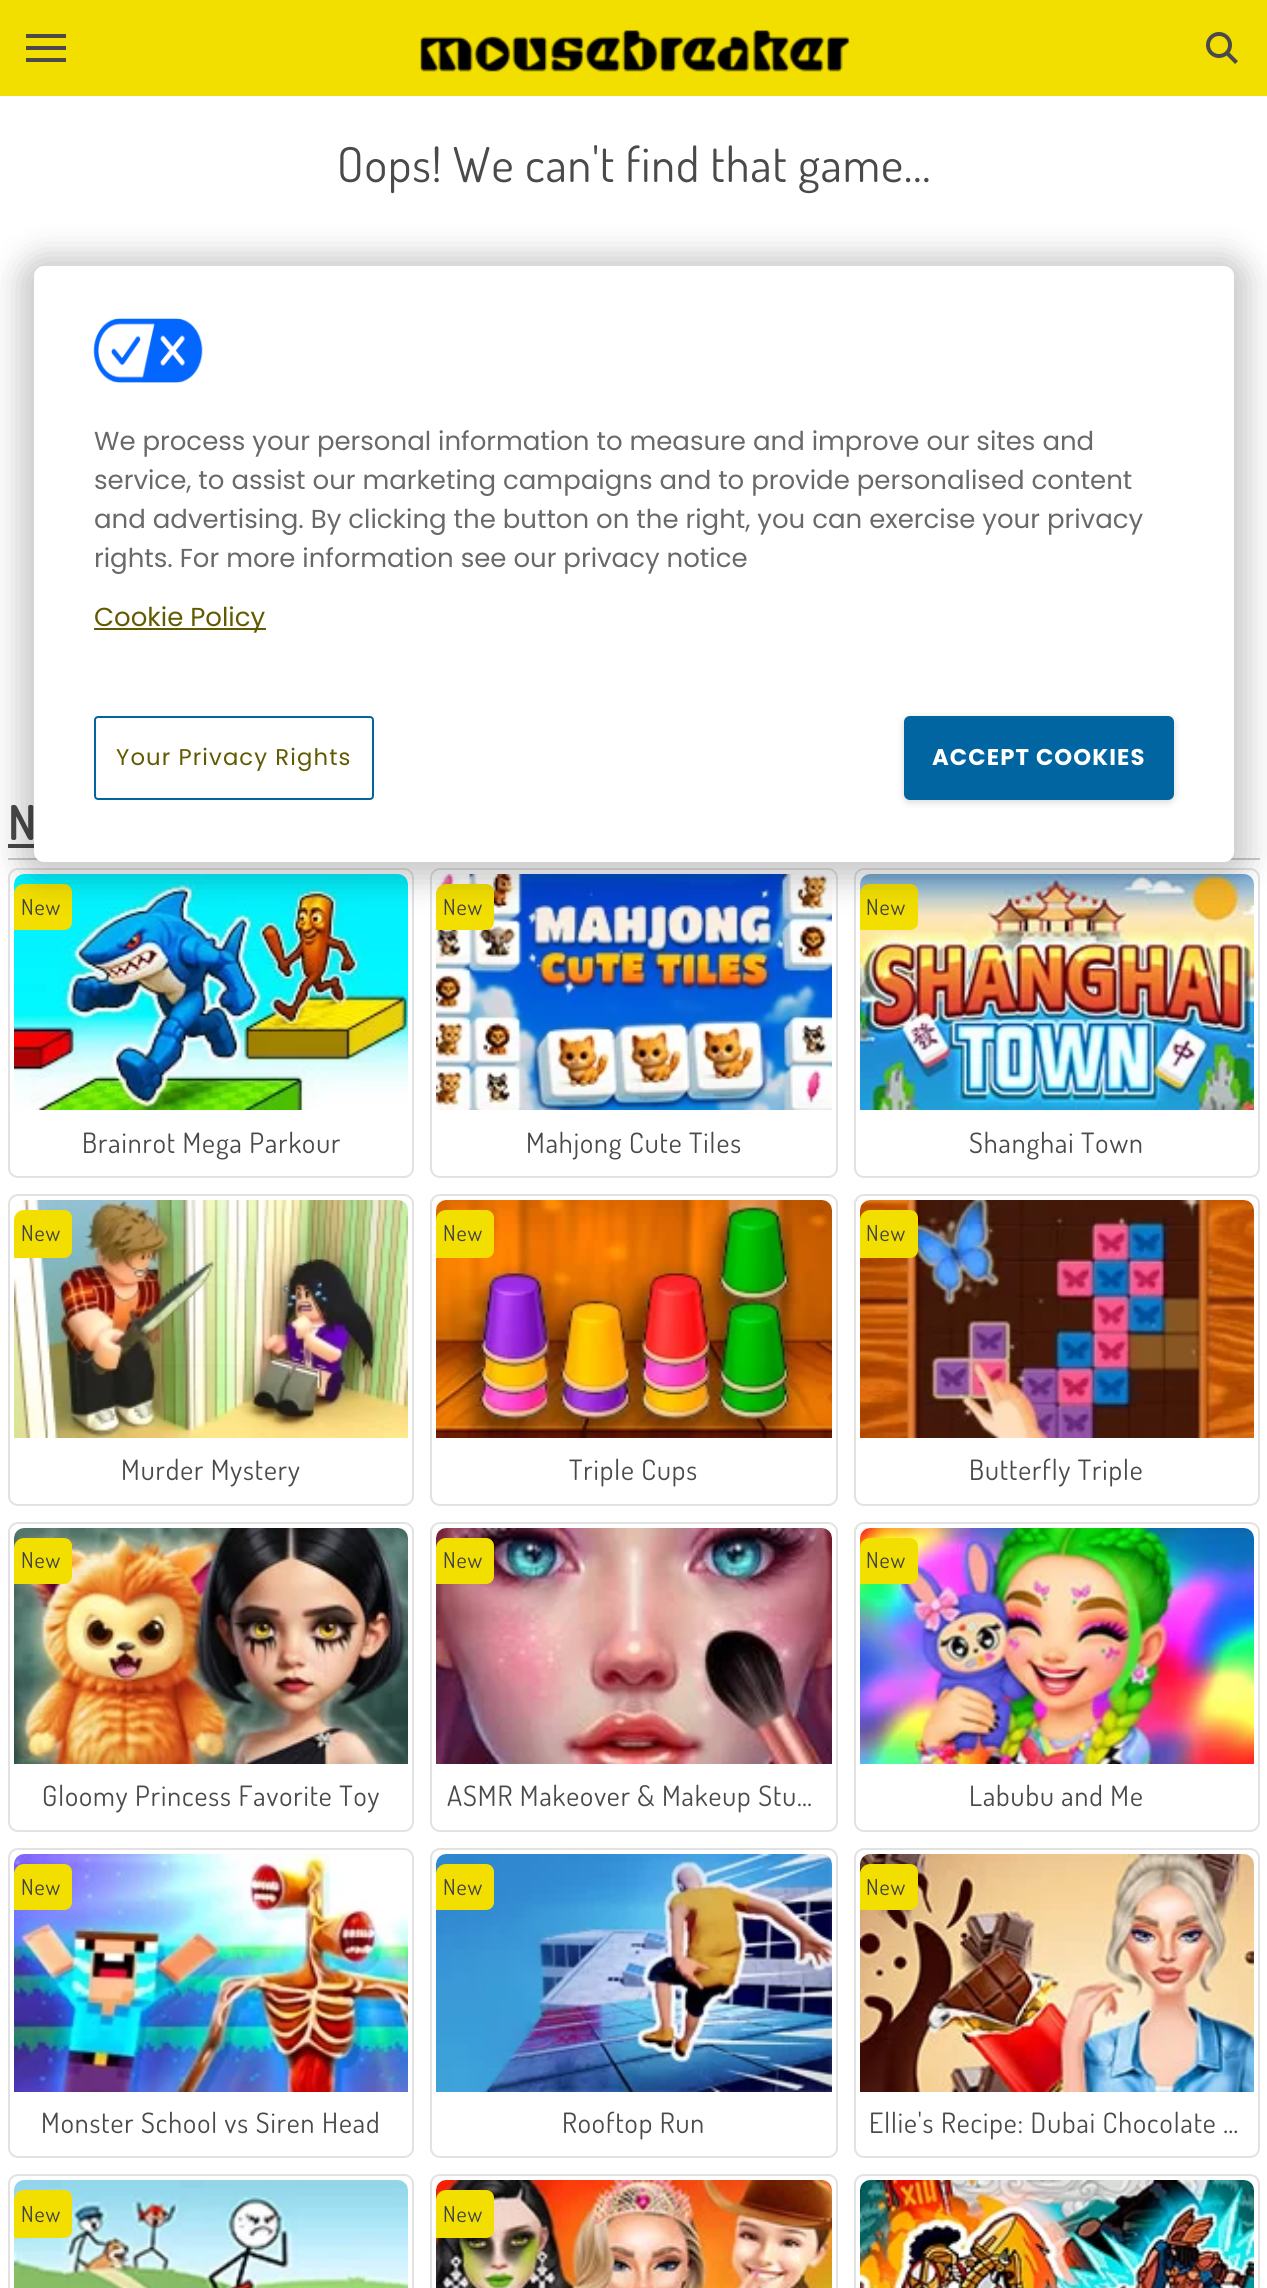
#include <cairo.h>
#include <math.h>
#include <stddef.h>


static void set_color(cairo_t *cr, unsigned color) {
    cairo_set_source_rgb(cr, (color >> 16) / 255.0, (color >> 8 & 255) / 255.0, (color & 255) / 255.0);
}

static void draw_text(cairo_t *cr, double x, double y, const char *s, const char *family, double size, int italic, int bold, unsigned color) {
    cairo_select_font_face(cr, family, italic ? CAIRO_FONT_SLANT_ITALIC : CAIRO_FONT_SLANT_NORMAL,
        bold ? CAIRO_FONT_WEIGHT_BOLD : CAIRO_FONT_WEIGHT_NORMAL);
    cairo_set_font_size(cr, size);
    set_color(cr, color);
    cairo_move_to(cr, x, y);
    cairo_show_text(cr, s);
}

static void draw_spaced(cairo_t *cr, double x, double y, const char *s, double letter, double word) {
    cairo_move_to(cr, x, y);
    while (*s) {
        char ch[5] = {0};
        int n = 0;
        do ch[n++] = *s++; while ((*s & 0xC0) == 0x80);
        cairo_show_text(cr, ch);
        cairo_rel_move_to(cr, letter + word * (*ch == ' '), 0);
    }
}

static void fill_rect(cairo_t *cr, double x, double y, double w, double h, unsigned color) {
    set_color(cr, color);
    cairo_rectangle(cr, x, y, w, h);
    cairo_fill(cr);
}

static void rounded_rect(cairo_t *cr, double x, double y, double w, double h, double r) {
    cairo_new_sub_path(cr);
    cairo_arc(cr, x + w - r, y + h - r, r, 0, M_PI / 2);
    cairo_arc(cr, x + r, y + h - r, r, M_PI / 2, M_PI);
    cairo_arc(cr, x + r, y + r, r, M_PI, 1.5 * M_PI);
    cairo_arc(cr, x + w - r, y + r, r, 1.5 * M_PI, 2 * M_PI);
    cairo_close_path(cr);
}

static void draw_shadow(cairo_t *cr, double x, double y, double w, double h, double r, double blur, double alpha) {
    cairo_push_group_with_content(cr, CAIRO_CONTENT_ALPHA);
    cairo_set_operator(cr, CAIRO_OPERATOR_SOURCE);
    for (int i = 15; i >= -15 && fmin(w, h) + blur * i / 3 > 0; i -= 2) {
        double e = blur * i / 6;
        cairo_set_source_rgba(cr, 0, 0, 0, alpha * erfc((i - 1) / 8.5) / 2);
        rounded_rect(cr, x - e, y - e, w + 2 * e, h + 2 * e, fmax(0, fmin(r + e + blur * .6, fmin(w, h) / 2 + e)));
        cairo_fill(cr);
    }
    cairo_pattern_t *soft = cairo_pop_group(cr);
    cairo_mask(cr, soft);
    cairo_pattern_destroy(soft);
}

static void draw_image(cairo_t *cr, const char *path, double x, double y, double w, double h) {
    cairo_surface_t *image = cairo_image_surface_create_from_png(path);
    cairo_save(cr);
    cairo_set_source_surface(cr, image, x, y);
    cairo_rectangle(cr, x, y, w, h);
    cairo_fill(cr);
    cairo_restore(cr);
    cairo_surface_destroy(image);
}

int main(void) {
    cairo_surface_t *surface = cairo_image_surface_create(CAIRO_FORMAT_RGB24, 1267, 2288);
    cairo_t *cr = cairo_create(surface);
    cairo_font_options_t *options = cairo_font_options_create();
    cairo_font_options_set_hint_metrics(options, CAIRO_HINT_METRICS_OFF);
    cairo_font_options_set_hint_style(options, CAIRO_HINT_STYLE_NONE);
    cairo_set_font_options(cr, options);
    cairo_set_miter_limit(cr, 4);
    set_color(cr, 0xFFFFFF);
    cairo_paint(cr);
    fill_rect(cr, 0, 0, 1267, 96, 0xF2DF00);
    fill_rect(cr, 26, 34, 40, 4, 0x4A4A4A);
    fill_rect(cr, 26, 46, 40, 4, 0x4A4A4A);
    fill_rect(cr, 26, 58, 40, 4, 0x4A4A4A);
    draw_image(cr, "assets/img1.png", 420, 30, 430, 42);
    draw_image(cr, "assets/img2.png", 1206, 32, 32, 32);
    cairo_select_font_face(cr, "Dosis", CAIRO_FONT_SLANT_NORMAL, CAIRO_FONT_WEIGHT_NORMAL);
    cairo_set_font_size(cr, 48);
    draw_spaced(cr, 337, 182, "Oops! We can't find that game...", 0.95, 0);
    fill_rect(cr, 8, 858, 1252, 2, 0xCCCCCC);
    cairo_select_font_face(cr, "Dosis SemiBold", CAIRO_FONT_SLANT_NORMAL, CAIRO_FONT_WEIGHT_NORMAL);
    set_color(cr, 0x4A4A4A);
    draw_spaced(cr, 8, 840, "N", 0.95, 0);
    fill_rect(cr, 8, 844, 26, 4, 0x4A4A4A);
    rounded_rect(cr, 9, 869, 404, 308, 9);
    set_color(cr, 0xE2E2E2);
    cairo_stroke(cr);
    draw_image(cr, "assets/img3.png", 14, 874, 394, 236);
    set_color(cr, 0xF2DF00);
    cairo_new_path(cr);
    cairo_move_to(cr, 24, 884);
    cairo_line_to(cr, 64, 884);
    cairo_curve_to(cr, 68.5, 884, 72, 887.5, 72, 892);
    cairo_line_to(cr, 72, 922);
    cairo_curve_to(cr, 72, 926.5, 68.5, 930, 64, 930);
    cairo_line_to(cr, 14, 930);
    cairo_line_to(cr, 14, 894);
    cairo_curve_to(cr, 14, 888.5, 18.5, 884, 24, 884);
    cairo_close_path(cr);
    cairo_fill(cr);
    cairo_select_font_face(cr, "Dosis", CAIRO_FONT_SLANT_NORMAL, CAIRO_FONT_WEIGHT_NORMAL);
    cairo_set_font_size(cr, 22);
    set_color(cr, 0x424242);
    draw_spaced(cr, 21, 915, "New", 0.95, 0);
    cairo_set_font_size(cr, 28);
    set_color(cr, 0x4A4A4A);
    draw_spaced(cr, 82, 1153, "Brainrot Mega Parkour", 0.95, 0);
    rounded_rect(cr, 431, 869, 406, 308, 9);
    set_color(cr, 0xE2E2E2);
    cairo_stroke(cr);
    draw_image(cr, "assets/img4.png", 436, 874, 396, 236);
    set_color(cr, 0xF2DF00);
    cairo_new_path(cr);
    cairo_move_to(cr, 446, 884);
    cairo_line_to(cr, 486, 884);
    cairo_curve_to(cr, 490.5, 884, 494, 887.5, 494, 892);
    cairo_line_to(cr, 494, 922);
    cairo_curve_to(cr, 494, 926.5, 490.5, 930, 486, 930);
    cairo_line_to(cr, 436, 930);
    cairo_line_to(cr, 436, 894);
    cairo_curve_to(cr, 436, 888.5, 440.5, 884, 446, 884);
    cairo_close_path(cr);
    cairo_fill(cr);
    cairo_set_font_size(cr, 22);
    set_color(cr, 0x424242);
    draw_spaced(cr, 443, 915, "New", 0.95, 0);
    cairo_set_font_size(cr, 28);
    set_color(cr, 0x4A4A4A);
    draw_spaced(cr, 526, 1153, "Mahjong Cute Tiles", 0.95, 0);
    rounded_rect(cr, 855, 869, 404, 308, 9);
    set_color(cr, 0xE2E2E2);
    cairo_stroke(cr);
    draw_image(cr, "assets/img5.png", 860, 874, 394, 236);
    set_color(cr, 0xF2DF00);
    cairo_new_path(cr);
    cairo_move_to(cr, 870, 884);
    cairo_line_to(cr, 910, 884);
    cairo_curve_to(cr, 914.5, 884, 918, 887.5, 918, 892);
    cairo_line_to(cr, 918, 922);
    cairo_curve_to(cr, 918, 926.5, 914.5, 930, 910, 930);
    cairo_line_to(cr, 860, 930);
    cairo_line_to(cr, 860, 894);
    cairo_curve_to(cr, 860, 888.5, 864.5, 884, 870, 884);
    cairo_close_path(cr);
    cairo_fill(cr);
    cairo_set_font_size(cr, 22);
    set_color(cr, 0x424242);
    draw_spaced(cr, 866, 915, "New", 0.95, 0);
    cairo_set_font_size(cr, 28);
    set_color(cr, 0x4A4A4A);
    draw_spaced(cr, 969, 1153, "Shanghai Town", 0.95, 0);
    rounded_rect(cr, 9, 1195, 404, 310, 9);
    set_color(cr, 0xE2E2E2);
    cairo_stroke(cr);
    draw_image(cr, "assets/img6.png", 14, 1200, 394, 238);
    set_color(cr, 0xF2DF00);
    cairo_new_path(cr);
    cairo_move_to(cr, 24, 1210);
    cairo_line_to(cr, 64, 1210);
    cairo_curve_to(cr, 68.5, 1210, 72, 1213.5, 72, 1218);
    cairo_line_to(cr, 72, 1250);
    cairo_curve_to(cr, 72, 1254.5, 68.5, 1258, 64, 1258);
    cairo_line_to(cr, 14, 1258);
    cairo_line_to(cr, 14, 1220);
    cairo_curve_to(cr, 14, 1214.5, 18.5, 1210, 24, 1210);
    cairo_close_path(cr);
    cairo_fill(cr);
    cairo_set_font_size(cr, 22);
    set_color(cr, 0x424242);
    draw_spaced(cr, 21, 1241, "New", 0.95, 0);
    cairo_set_font_size(cr, 28);
    set_color(cr, 0x4A4A4A);
    draw_spaced(cr, 121, 1480, "Murder Mystery", 0.95, 0);
    rounded_rect(cr, 431, 1195, 406, 310, 9);
    set_color(cr, 0xE2E2E2);
    cairo_stroke(cr);
    draw_image(cr, "assets/img7.png", 436, 1200, 396, 238);
    set_color(cr, 0xF2DF00);
    cairo_new_path(cr);
    cairo_move_to(cr, 446, 1210);
    cairo_line_to(cr, 486, 1210);
    cairo_curve_to(cr, 490.5, 1210, 494, 1213.5, 494, 1218);
    cairo_line_to(cr, 494, 1250);
    cairo_curve_to(cr, 494, 1254.5, 490.5, 1258, 486, 1258);
    cairo_line_to(cr, 436, 1258);
    cairo_line_to(cr, 436, 1220);
    cairo_curve_to(cr, 436, 1214.5, 440.5, 1210, 446, 1210);
    cairo_close_path(cr);
    cairo_fill(cr);
    cairo_set_font_size(cr, 22);
    set_color(cr, 0x424242);
    draw_spaced(cr, 443, 1241, "New", 0.95, 0);
    cairo_set_font_size(cr, 28);
    set_color(cr, 0x4A4A4A);
    draw_spaced(cr, 569, 1480, "Triple Cups", 0.95, 0);
    rounded_rect(cr, 855, 1195, 404, 310, 9);
    set_color(cr, 0xE2E2E2);
    cairo_stroke(cr);
    draw_image(cr, "assets/img8.png", 860, 1200, 394, 238);
    set_color(cr, 0xF2DF00);
    cairo_new_path(cr);
    cairo_move_to(cr, 870, 1210);
    cairo_line_to(cr, 910, 1210);
    cairo_curve_to(cr, 914.5, 1210, 918, 1213.5, 918, 1218);
    cairo_line_to(cr, 918, 1250);
    cairo_curve_to(cr, 918, 1254.5, 914.5, 1258, 910, 1258);
    cairo_line_to(cr, 860, 1258);
    cairo_line_to(cr, 860, 1220);
    cairo_curve_to(cr, 860, 1214.5, 864.5, 1210, 870, 1210);
    cairo_close_path(cr);
    cairo_fill(cr);
    cairo_set_font_size(cr, 22);
    set_color(cr, 0x424242);
    draw_spaced(cr, 866, 1241, "New", 0.95, 0);
    cairo_set_font_size(cr, 28);
    set_color(cr, 0x4A4A4A);
    draw_spaced(cr, 969, 1480, "Butterfly Triple", 0.95, 0);
    rounded_rect(cr, 9, 1523, 404, 308, 9);
    set_color(cr, 0xE2E2E2);
    cairo_stroke(cr);
    draw_image(cr, "assets/img9.png", 14, 1528, 394, 236);
    set_color(cr, 0xF2DF00);
    cairo_new_path(cr);
    cairo_move_to(cr, 24, 1538);
    cairo_line_to(cr, 64, 1538);
    cairo_curve_to(cr, 68.5, 1538, 72, 1541.5, 72, 1546);
    cairo_line_to(cr, 72, 1576);
    cairo_curve_to(cr, 72, 1580.5, 68.5, 1584, 64, 1584);
    cairo_line_to(cr, 14, 1584);
    cairo_line_to(cr, 14, 1548);
    cairo_curve_to(cr, 14, 1542.5, 18.5, 1538, 24, 1538);
    cairo_close_path(cr);
    cairo_fill(cr);
    cairo_set_font_size(cr, 22);
    set_color(cr, 0x424242);
    draw_spaced(cr, 21, 1568, "New", 0.95, 0);
    cairo_set_font_size(cr, 28);
    set_color(cr, 0x4A4A4A);
    draw_spaced(cr, 42, 1806, "Gloomy Princess Favorite Toy", 0.95, 0);
    rounded_rect(cr, 431, 1523, 406, 308, 9);
    set_color(cr, 0xE2E2E2);
    cairo_stroke(cr);
    draw_image(cr, "assets/img10.png", 436, 1528, 396, 236);
    set_color(cr, 0xF2DF00);
    cairo_new_path(cr);
    cairo_move_to(cr, 446, 1538);
    cairo_line_to(cr, 486, 1538);
    cairo_curve_to(cr, 490.5, 1538, 494, 1541.5, 494, 1546);
    cairo_line_to(cr, 494, 1576);
    cairo_curve_to(cr, 494, 1580.5, 490.5, 1584, 486, 1584);
    cairo_line_to(cr, 436, 1584);
    cairo_line_to(cr, 436, 1548);
    cairo_curve_to(cr, 436, 1542.5, 440.5, 1538, 446, 1538);
    cairo_close_path(cr);
    cairo_fill(cr);
    cairo_set_font_size(cr, 22);
    set_color(cr, 0x424242);
    draw_spaced(cr, 443, 1568, "New", 0.95, 0);
    cairo_set_font_size(cr, 28);
    set_color(cr, 0x4A4A4A);
    draw_spaced(cr, 447, 1806, "ASMR Makeover & Makeup Stu…", 0.95, 0);
    rounded_rect(cr, 855, 1523, 404, 308, 9);
    set_color(cr, 0xE2E2E2);
    cairo_stroke(cr);
    draw_image(cr, "assets/img11.png", 860, 1528, 394, 236);
    set_color(cr, 0xF2DF00);
    cairo_new_path(cr);
    cairo_move_to(cr, 870, 1538);
    cairo_line_to(cr, 910, 1538);
    cairo_curve_to(cr, 914.5, 1538, 918, 1541.5, 918, 1546);
    cairo_line_to(cr, 918, 1576);
    cairo_curve_to(cr, 918, 1580.5, 914.5, 1584, 910, 1584);
    cairo_line_to(cr, 860, 1584);
    cairo_line_to(cr, 860, 1548);
    cairo_curve_to(cr, 860, 1542.5, 864.5, 1538, 870, 1538);
    cairo_close_path(cr);
    cairo_fill(cr);
    cairo_set_font_size(cr, 22);
    set_color(cr, 0x424242);
    draw_spaced(cr, 866, 1568, "New", 0.95, 0);
    cairo_set_font_size(cr, 28);
    set_color(cr, 0x4A4A4A);
    draw_spaced(cr, 969, 1806, "Labubu and Me", 0.95, 0);
    rounded_rect(cr, 9, 1849, 404, 308, 9);
    set_color(cr, 0xE2E2E2);
    cairo_stroke(cr);
    draw_image(cr, "assets/img12.png", 14, 1854, 394, 238);
    set_color(cr, 0xF2DF00);
    cairo_new_path(cr);
    cairo_move_to(cr, 24, 1864);
    cairo_line_to(cr, 64, 1864);
    cairo_curve_to(cr, 68.5, 1864, 72, 1867.5, 72, 1872);
    cairo_line_to(cr, 72, 1902);
    cairo_curve_to(cr, 72, 1906.5, 68.5, 1910, 64, 1910);
    cairo_line_to(cr, 14, 1910);
    cairo_line_to(cr, 14, 1874);
    cairo_curve_to(cr, 14, 1868.5, 18.5, 1864, 24, 1864);
    cairo_close_path(cr);
    cairo_fill(cr);
    cairo_set_font_size(cr, 22);
    set_color(cr, 0x424242);
    draw_spaced(cr, 21, 1895, "New", 0.95, 0);
    cairo_set_font_size(cr, 28);
    set_color(cr, 0x4A4A4A);
    draw_spaced(cr, 41, 2133, "Monster School vs Siren Head", 0.95, 0);
    rounded_rect(cr, 431, 1849, 406, 308, 9);
    set_color(cr, 0xE2E2E2);
    cairo_stroke(cr);
    draw_image(cr, "assets/img13.png", 436, 1854, 396, 238);
    set_color(cr, 0xF2DF00);
    cairo_new_path(cr);
    cairo_move_to(cr, 446, 1864);
    cairo_line_to(cr, 486, 1864);
    cairo_curve_to(cr, 490.5, 1864, 494, 1867.5, 494, 1872);
    cairo_line_to(cr, 494, 1902);
    cairo_curve_to(cr, 494, 1906.5, 490.5, 1910, 486, 1910);
    cairo_line_to(cr, 436, 1910);
    cairo_line_to(cr, 436, 1874);
    cairo_curve_to(cr, 436, 1868.5, 440.5, 1864, 446, 1864);
    cairo_close_path(cr);
    cairo_fill(cr);
    cairo_set_font_size(cr, 22);
    set_color(cr, 0x424242);
    draw_spaced(cr, 443, 1895, "New", 0.95, 0);
    cairo_set_font_size(cr, 28);
    set_color(cr, 0x4A4A4A);
    draw_spaced(cr, 562, 2133, "Rooftop Run", 0.95, 0);
    rounded_rect(cr, 855, 1849, 404, 308, 9);
    set_color(cr, 0xE2E2E2);
    cairo_stroke(cr);
    draw_image(cr, "assets/img14.png", 860, 1854, 394, 238);
    set_color(cr, 0xF2DF00);
    cairo_new_path(cr);
    cairo_move_to(cr, 870, 1864);
    cairo_line_to(cr, 910, 1864);
    cairo_curve_to(cr, 914.5, 1864, 918, 1867.5, 918, 1872);
    cairo_line_to(cr, 918, 1902);
    cairo_curve_to(cr, 918, 1906.5, 914.5, 1910, 910, 1910);
    cairo_line_to(cr, 860, 1910);
    cairo_line_to(cr, 860, 1874);
    cairo_curve_to(cr, 860, 1868.5, 864.5, 1864, 870, 1864);
    cairo_close_path(cr);
    cairo_fill(cr);
    cairo_set_font_size(cr, 22);
    set_color(cr, 0x424242);
    draw_spaced(cr, 866, 1895, "New", 0.95, 0);
    cairo_set_font_size(cr, 28);
    set_color(cr, 0x4A4A4A);
    draw_spaced(cr, 869, 2133, "Ellie's Recipe: Dubai Chocolate …", 0.95, 0);
    rounded_rect(cr, 9, 2175, 404, 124, 9);
    set_color(cr, 0xE2E2E2);
    cairo_stroke(cr);
    draw_image(cr, "assets/img15.png", 14, 2180, 394, 108);
    set_color(cr, 0xF2DF00);
    cairo_new_path(cr);
    cairo_move_to(cr, 24, 2190);
    cairo_line_to(cr, 64, 2190);
    cairo_curve_to(cr, 68.5, 2190, 72, 2193.5, 72, 2198);
    cairo_line_to(cr, 72, 2230);
    cairo_curve_to(cr, 72, 2234.5, 68.5, 2238, 64, 2238);
    cairo_line_to(cr, 14, 2238);
    cairo_line_to(cr, 14, 2200);
    cairo_curve_to(cr, 14, 2194.5, 18.5, 2190, 24, 2190);
    cairo_close_path(cr);
    cairo_fill(cr);
    cairo_set_font_size(cr, 22);
    set_color(cr, 0x424242);
    draw_spaced(cr, 21, 2222, "New", 0.95, 0);
    rounded_rect(cr, 431, 2175, 406, 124, 9);
    set_color(cr, 0xE2E2E2);
    cairo_stroke(cr);
    draw_image(cr, "assets/img16.png", 436, 2180, 396, 108);
    set_color(cr, 0xF2DF00);
    cairo_new_path(cr);
    cairo_move_to(cr, 446, 2190);
    cairo_line_to(cr, 486, 2190);
    cairo_curve_to(cr, 490.5, 2190, 494, 2193.5, 494, 2198);
    cairo_line_to(cr, 494, 2230);
    cairo_curve_to(cr, 494, 2234.5, 490.5, 2238, 486, 2238);
    cairo_line_to(cr, 436, 2238);
    cairo_line_to(cr, 436, 2200);
    cairo_curve_to(cr, 436, 2194.5, 440.5, 2190, 446, 2190);
    cairo_close_path(cr);
    cairo_fill(cr);
    set_color(cr, 0x424242);
    draw_spaced(cr, 443, 2222, "New", 0.95, 0);
    rounded_rect(cr, 855, 2175, 404, 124, 9);
    set_color(cr, 0xE2E2E2);
    cairo_stroke(cr);
    draw_image(cr, "assets/img17.png", 860, 2180, 394, 108);
    set_color(cr, 0x000000);
    draw_shadow(cr, 18, 254, 1232, 628, 26, 15, 0.2);
    set_color(cr, 0xFFFFFF);
    rounded_rect(cr, 34, 266, 1200, 596, 10);
    cairo_fill(cr);
    draw_image(cr, "assets/img18.png", 93, 318, 110, 65);
    draw_text(cr, 94, 450, "We process your personal information to measure and improve our sites and", "Poppins", 26, 0, 0, 0x696969);
    draw_text(cr, 94, 489, "service, to assist our marketing campaigns and to provide personalised content", "Poppins", 26, 0, 0, 0x696969);
    draw_text(cr, 94, 528, "and advertising. By clicking the button on the right, you can exercise your privacy", "Poppins", 26, 0, 0, 0x696969);
    draw_text(cr, 94, 567, "rights. For more information see our privacy notice", "Poppins", 26, 0, 0, 0x696969);
    fill_rect(cr, 94, 628, 172, 2, 0x625A00);
    draw_text(cr, 94, 626, "Cookie Policy", "Poppins", 26, 0, 0, 0x625A00);
    rounded_rect(cr, 95, 717, 278, 82, 3);
    set_color(cr, 0x0065A0);
    cairo_stroke(cr);
    cairo_set_font_size(cr, 22.75);
    set_color(cr, 0x625A00);
    draw_spaced(cr, 116, 765, "Your Privacy Rights", 1.1, 0);
    set_color(cr, 0x000000);
    draw_shadow(cr, 904, 718, 270, 84, 6, 4, 0.16);
    set_color(cr, 0x0065A0);
    rounded_rect(cr, 905, 717, 268, 82, 5);
    cairo_fill_preserve(cr);
    cairo_stroke(cr);
    cairo_select_font_face(cr, "Poppins", CAIRO_FONT_SLANT_NORMAL, CAIRO_FONT_WEIGHT_BOLD);
    set_color(cr, 0xFFFFFF);
    draw_spaced(cr, 932, 765, "ACCEPT COOKIES", 1.1, 0);
    cairo_surface_write_to_png(surface, "output.png");
    cairo_font_options_destroy(options);
    cairo_destroy(cr);
    cairo_surface_destroy(surface);
    return 0;
}
